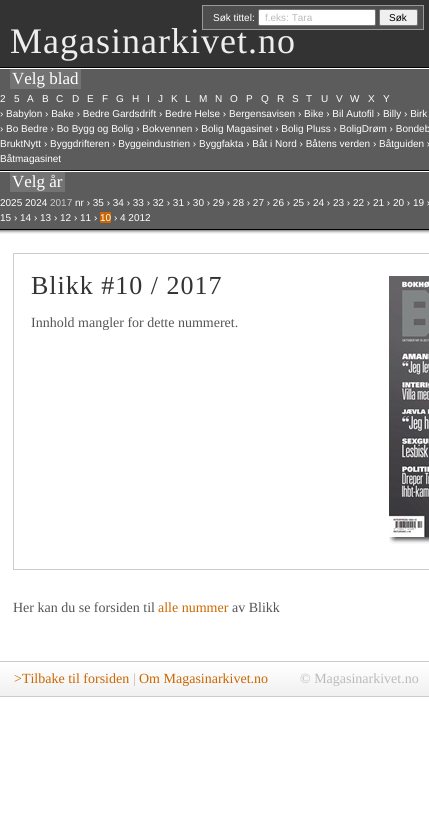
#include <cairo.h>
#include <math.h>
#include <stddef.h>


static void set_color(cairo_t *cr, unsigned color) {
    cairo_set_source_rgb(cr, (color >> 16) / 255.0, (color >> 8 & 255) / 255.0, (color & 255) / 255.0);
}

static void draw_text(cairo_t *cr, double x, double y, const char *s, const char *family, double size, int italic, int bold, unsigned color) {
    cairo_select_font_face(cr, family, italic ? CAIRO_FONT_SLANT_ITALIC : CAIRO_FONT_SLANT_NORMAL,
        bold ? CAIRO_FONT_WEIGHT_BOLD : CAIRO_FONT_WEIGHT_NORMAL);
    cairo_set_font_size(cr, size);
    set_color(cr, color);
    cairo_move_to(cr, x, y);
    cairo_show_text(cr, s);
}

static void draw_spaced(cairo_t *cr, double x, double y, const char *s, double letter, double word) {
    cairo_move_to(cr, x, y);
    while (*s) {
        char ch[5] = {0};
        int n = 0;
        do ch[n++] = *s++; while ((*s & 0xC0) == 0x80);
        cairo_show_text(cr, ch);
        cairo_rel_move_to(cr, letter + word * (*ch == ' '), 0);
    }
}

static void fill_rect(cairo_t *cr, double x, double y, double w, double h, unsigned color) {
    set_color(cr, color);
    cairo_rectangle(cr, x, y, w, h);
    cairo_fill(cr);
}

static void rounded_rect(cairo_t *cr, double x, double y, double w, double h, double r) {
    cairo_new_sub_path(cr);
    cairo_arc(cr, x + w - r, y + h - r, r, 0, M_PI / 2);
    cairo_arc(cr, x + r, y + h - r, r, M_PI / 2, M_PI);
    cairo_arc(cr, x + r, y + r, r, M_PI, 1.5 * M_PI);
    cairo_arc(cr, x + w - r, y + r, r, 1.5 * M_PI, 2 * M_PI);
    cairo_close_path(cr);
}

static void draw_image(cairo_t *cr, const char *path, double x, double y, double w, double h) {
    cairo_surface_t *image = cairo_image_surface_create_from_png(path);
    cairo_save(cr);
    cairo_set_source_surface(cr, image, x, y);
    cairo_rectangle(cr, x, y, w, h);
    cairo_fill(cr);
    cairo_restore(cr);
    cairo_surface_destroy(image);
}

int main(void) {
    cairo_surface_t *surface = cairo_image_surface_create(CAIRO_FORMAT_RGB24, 429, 828);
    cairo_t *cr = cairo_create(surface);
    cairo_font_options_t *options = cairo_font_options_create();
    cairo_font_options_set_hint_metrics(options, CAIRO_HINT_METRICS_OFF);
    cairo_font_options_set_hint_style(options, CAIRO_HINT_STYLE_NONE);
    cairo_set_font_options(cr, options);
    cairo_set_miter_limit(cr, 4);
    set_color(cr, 0xFFFFFF);
    cairo_paint(cr);
    fill_rect(cr, 0, 0, 429, 67, 0x333333);
    fill_rect(cr, 0, 67, 429, 1, 0x000000);
    cairo_select_font_face(cr, "Liberation Serif", CAIRO_FONT_SLANT_NORMAL, CAIRO_FONT_WEIGHT_NORMAL);
    cairo_set_font_size(cr, 36);
    set_color(cr, 0xEEEEEE);
    draw_spaced(cr, 10, 53, "Magasinarkivet.no", 1, 0);
    set_color(cr, 0x4E4E4E);
    cairo_rectangle(cr, 202.5, 5.5, 221, 24);
    cairo_fill_preserve(cr);
    set_color(cr, 0x999999);
    cairo_set_line_width(cr, 1);
    cairo_stroke(cr);
    draw_text(cr, 213, 21, "Søk tittel:", "Liberation Sans", 10, 0, 0, 0xFFFFFF);
    rounded_rect(cr, 258.5, 9.5, 117, 16, 1.5);
    cairo_fill_preserve(cr);
    set_color(cr, 0x767676);
    cairo_stroke(cr);
    draw_text(cr, 265, 21, "f.eks: Tara", "Liberation Sans", 10, 0, 0, 0xBBBBBB);
    set_color(cr, 0xEFEFEF);
    rounded_rect(cr, 379.5, 9.5, 38, 16, 1.5);
    cairo_fill_preserve(cr);
    set_color(cr, 0x767676);
    cairo_stroke(cr);
    draw_text(cr, 389, 21, "Søk", "Liberation Sans", 10, 0, 0, 0x000000);
    fill_rect(cr, 0, 69, 429, 101, 0x5C5C5C);
    fill_rect(cr, 0, 170, 429, 1, 0x000000);
    fill_rect(cr, 10, 69, 71, 20, 0x737373);
    draw_text(cr, 12, 84, "Velg blad", "Liberation Serif", 17, 0, 0, 0xFFFFFF);
    draw_text(cr, 0, 102, "2", "Liberation Sans", 10, 0, 0, 0xFFFFFF);
    draw_text(cr, 14, 102, "5", "Liberation Sans", 10, 0, 0, 0xFFFFFF);
    draw_text(cr, 27, 102, "A", "Liberation Sans", 10, 0, 0, 0xFFFFFF);
    draw_text(cr, 42, 102, "B", "Liberation Sans", 10, 0, 0, 0xFFFFFF);
    draw_text(cr, 56, 102, "C", "Liberation Sans", 10, 0, 0, 0xFFFFFF);
    draw_text(cr, 72, 102, "D", "Liberation Sans", 10, 0, 0, 0xFFFFFF);
    draw_text(cr, 87, 102, "E", "Liberation Sans", 10, 0, 0, 0xFFFFFF);
    draw_text(cr, 102, 102, "F", "Liberation Sans", 10, 0, 0, 0xFFFFFF);
    draw_text(cr, 116, 102, "G", "Liberation Sans", 10, 0, 0, 0xFFFFFF);
    draw_text(cr, 132, 102, "H", "Liberation Sans", 10, 0, 0, 0xFFFFFF);
    draw_text(cr, 147, 102, "I", "Liberation Sans", 10, 0, 0, 0xFFFFFF);
    draw_text(cr, 158, 102, "J", "Liberation Sans", 10, 0, 0, 0xFFFFFF);
    draw_text(cr, 171, 102, "K", "Liberation Sans", 10, 0, 0, 0xFFFFFF);
    draw_text(cr, 185, 102, "L", "Liberation Sans", 10, 0, 0, 0xFFFFFF);
    draw_text(cr, 199, 102, "M", "Liberation Sans", 10, 0, 0, 0xFFFFFF);
    draw_text(cr, 215, 102, "N", "Liberation Sans", 10, 0, 0, 0xFFFFFF);
    draw_text(cr, 230, 102, "O", "Liberation Sans", 10, 0, 0, 0xFFFFFF);
    draw_text(cr, 246, 102, "P", "Liberation Sans", 10, 0, 0, 0xFFFFFF);
    draw_text(cr, 261, 102, "Q", "Liberation Sans", 10, 0, 0, 0xFFFFFF);
    draw_text(cr, 277, 102, "R", "Liberation Sans", 10, 0, 0, 0xFFFFFF);
    draw_text(cr, 292, 102, "S", "Liberation Sans", 10, 0, 0, 0xFFFFFF);
    draw_text(cr, 306, 102, "T", "Liberation Sans", 10, 0, 0, 0xFFFFFF);
    draw_text(cr, 321, 102, "U", "Liberation Sans", 10, 0, 0, 0xFFFFFF);
    draw_text(cr, 336, 102, "V", "Liberation Sans", 10, 0, 0, 0xFFFFFF);
    draw_text(cr, 350, 102, "W", "Liberation Sans", 10, 0, 0, 0xFFFFFF);
    draw_text(cr, 368, 102, "X", "Liberation Sans", 10, 0, 0, 0xFFFFFF);
    draw_text(cr, 383, 102, "Y", "Liberation Sans", 10, 0, 0, 0xFFFFFF);
    draw_text(cr, 0, 117, "› Babylon › Bake › Bedre Gardsdrift › Bedre Helse › Bergensavisen › Bike › Bil Autofil › Billy › Birk", "Liberation Sans", 10, 0, 0, 0xFFFFFF);
    draw_text(cr, 0, 132, "› Bo Bedre › Bo Bygg og Bolig › Bokvennen › Bolig Magasinet › Bolig Pluss › BoligDrøm › Bondeb", "Liberation Sans", 10, 0, 0, 0xFFFFFF);
    draw_text(cr, 0, 147, "BruktNytt › Byggdrifteren › Byggeindustrien › Byggfakta › Båt i Nord › Båtens verden › Båtguiden ›", "Liberation Sans", 10, 0, 0, 0xFFFFFF);
    draw_text(cr, 0, 162, "Båtmagasinet", "Liberation Sans", 10, 0, 0, 0xFFFFFF);
    fill_rect(cr, 0, 172, 429, 57, 0x5C5C5C);
    fill_rect(cr, 0, 229, 429, 1, 0x000000);
    fill_rect(cr, 10, 172, 55, 20, 0x737373);
    draw_text(cr, 12, 187, "Velg år", "Liberation Serif", 17, 0, 0, 0xFFFFFF);
    draw_text(cr, 0, 206, "2025 2024", "Liberation Sans", 10, 0, 0, 0xFFFFFF);
    draw_text(cr, 50, 206, "2017", "Liberation Sans", 10, 0, 0, 0xCCCCCC);
    draw_text(cr, 75, 206, "nr › 35 › 34 › 33 › 32 › 31 › 30 › 29 › 28 › 27 › 26 › 25 › 24 › 23 › 22 › 21 › 20 › 19 ›", "Liberation Sans", 10, 0, 0, 0xFFFFFF);
    draw_text(cr, 0, 221, "15 › 14 › 13 › 12 › 11 ›", "Liberation Sans", 10, 0, 0, 0xFFFFFF);
    fill_rect(cr, 100, 212, 11, 11, 0xCC6600);
    draw_text(cr, 100, 221, "10 › 4 2012", "Liberation Sans", 10, 0, 0, 0xFFFFFF);
    draw_image(cr, "assets/img1.png", 0, 230, 429, 4);
    cairo_rectangle(cr, 13.5, 253.5, 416, 316);
    set_color(cr, 0xCCCCCC);
    cairo_stroke(cr);
    cairo_select_font_face(cr, "Liberation Serif", CAIRO_FONT_SLANT_NORMAL, CAIRO_FONT_WEIGHT_NORMAL);
    cairo_set_font_size(cr, 26);
    set_color(cr, 0x333333);
    draw_spaced(cr, 31, 294, "Blikk #10 / 2017", 1, 0);
    draw_image(cr, "assets/img2.png", 389, 276, 40, 261);
    draw_image(cr, "assets/img3.png", 389, 537, 40, 7);
    draw_text(cr, 31, 327, "Innhold mangler for dette nummeret.", "Liberation Serif", 14, 0, 0, 0x555555);
    draw_text(cr, 13, 612, "Her kan du se forsiden til", "Liberation Serif", 14, 0, 0, 0x555555);
    draw_text(cr, 158, 612, "alle nummer", "Liberation Serif", 14, 0, 0, 0xCC6600);
    draw_text(cr, 232, 612, "av Blikk", "Liberation Serif", 14, 0, 0, 0x555555);
    draw_image(cr, "assets/img4.png", 0, 662, 429, 34);
    fill_rect(cr, 0, 661, 429, 1, 0xCCCCCC);
    fill_rect(cr, 0, 696, 429, 1, 0xCCCCCC);
    draw_text(cr, 14, 683, ">Tilbake til forsiden", "Liberation Serif", 14, 0, 0, 0xCC6600);
    draw_text(cr, 133, 683, "|", "Liberation Serif", 14, 0, 0, 0xBBBBBB);
    draw_text(cr, 139, 683, "Om Magasinarkivet.no", "Liberation Serif", 14, 0, 0, 0xCC6600);
    draw_text(cr, 300, 683, "© Magasinarkivet.no", "Liberation Serif", 14, 0, 0, 0xBBBBBB);
    cairo_surface_write_to_png(surface, "output.png");
    cairo_font_options_destroy(options);
    cairo_destroy(cr);
    cairo_surface_destroy(surface);
    return 0;
}
